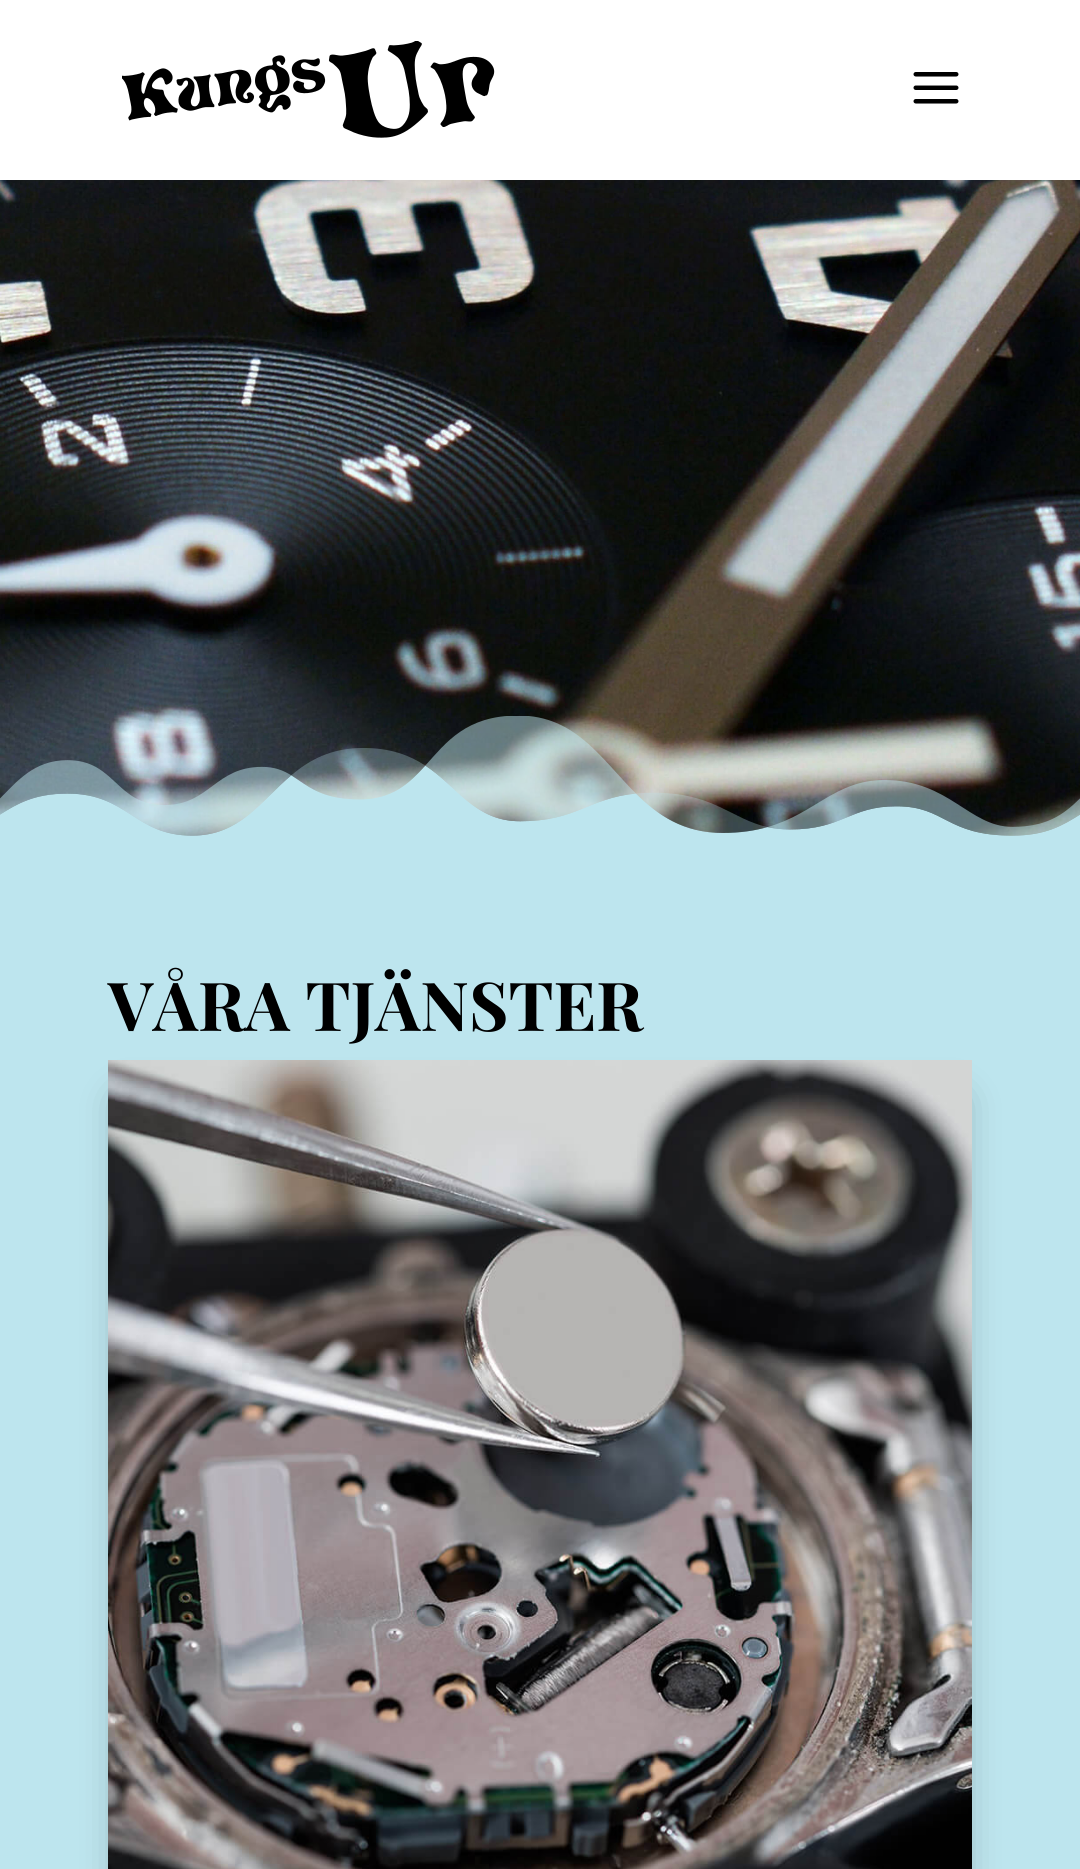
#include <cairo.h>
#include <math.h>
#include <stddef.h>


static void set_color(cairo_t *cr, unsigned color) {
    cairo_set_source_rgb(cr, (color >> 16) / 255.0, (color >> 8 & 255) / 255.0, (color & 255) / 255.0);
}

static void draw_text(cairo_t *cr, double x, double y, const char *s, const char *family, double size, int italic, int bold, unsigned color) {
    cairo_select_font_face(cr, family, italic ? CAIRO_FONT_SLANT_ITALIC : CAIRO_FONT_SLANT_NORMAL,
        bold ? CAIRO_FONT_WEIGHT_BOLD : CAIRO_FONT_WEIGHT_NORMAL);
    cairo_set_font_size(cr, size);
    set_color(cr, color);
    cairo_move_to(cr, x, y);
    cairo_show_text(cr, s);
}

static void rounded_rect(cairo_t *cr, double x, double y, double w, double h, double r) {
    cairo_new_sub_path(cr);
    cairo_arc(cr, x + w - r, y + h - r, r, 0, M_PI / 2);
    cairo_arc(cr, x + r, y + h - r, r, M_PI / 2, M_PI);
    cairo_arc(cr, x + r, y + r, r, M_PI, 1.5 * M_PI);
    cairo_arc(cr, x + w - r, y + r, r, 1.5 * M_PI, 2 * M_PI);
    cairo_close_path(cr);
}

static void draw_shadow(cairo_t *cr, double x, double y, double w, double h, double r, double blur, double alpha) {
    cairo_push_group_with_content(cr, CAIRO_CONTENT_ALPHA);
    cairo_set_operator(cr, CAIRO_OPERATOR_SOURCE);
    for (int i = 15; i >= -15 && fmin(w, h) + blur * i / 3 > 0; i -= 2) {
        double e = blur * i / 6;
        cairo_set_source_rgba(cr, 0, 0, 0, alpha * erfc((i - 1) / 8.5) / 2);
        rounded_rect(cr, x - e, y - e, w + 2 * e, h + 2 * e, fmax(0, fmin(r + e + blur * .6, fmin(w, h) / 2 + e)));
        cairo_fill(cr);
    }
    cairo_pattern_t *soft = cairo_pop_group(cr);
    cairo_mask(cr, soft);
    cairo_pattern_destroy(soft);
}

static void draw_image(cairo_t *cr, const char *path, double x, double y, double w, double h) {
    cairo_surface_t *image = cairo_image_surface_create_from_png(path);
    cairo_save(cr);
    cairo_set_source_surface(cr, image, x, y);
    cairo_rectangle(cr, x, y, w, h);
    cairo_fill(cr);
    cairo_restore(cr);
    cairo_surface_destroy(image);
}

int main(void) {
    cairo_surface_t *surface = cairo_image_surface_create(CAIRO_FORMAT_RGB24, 1080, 1869);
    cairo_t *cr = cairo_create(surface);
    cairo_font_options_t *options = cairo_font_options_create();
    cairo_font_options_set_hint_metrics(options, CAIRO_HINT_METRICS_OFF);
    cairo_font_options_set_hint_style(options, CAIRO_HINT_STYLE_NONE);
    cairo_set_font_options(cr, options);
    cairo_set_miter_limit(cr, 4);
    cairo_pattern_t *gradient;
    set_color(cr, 0xFFFFFF);
    cairo_paint(cr);
    draw_image(cr, "assets/img1.png", 122, 41, 373, 97);
    draw_image(cr, "assets/img2.png", 913, 72, 46, 32);
    draw_image(cr, "assets/img3.png", 0, 180, 1080, 656);
    draw_image(cr, "assets/img4.png", 0, 716, 1080, 133);
    gradient = cairo_pattern_create_radial(540, 2275, 0, 540, 2275, 1525);
    cairo_pattern_add_color_stop_rgba(gradient, 0, 0.82, 0.922, 0.957, 1);
    cairo_pattern_add_color_stop_rgba(gradient, 0.41, 0.741, 0.898, 0.933, 1);
    cairo_set_source(cr, gradient);
    cairo_pattern_destroy(gradient);
    cairo_rectangle(cr, 0, 849, 1080, 1020);
    cairo_fill(cr);
    draw_text(cr, 108, 1031, "VÅRA TJÄNSTER", "Playfair Display", 67.5, 0, 1, 0x000000);
    set_color(cr, 0x000000);
    draw_shadow(cr, 122, 1100, 837, 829, 0, 20, 0.3);
    draw_image(cr, "assets/img5.png", 108, 1060, 864, 809);
    cairo_surface_write_to_png(surface, "output.png");
    cairo_font_options_destroy(options);
    cairo_destroy(cr);
    cairo_surface_destroy(surface);
    return 0;
}
